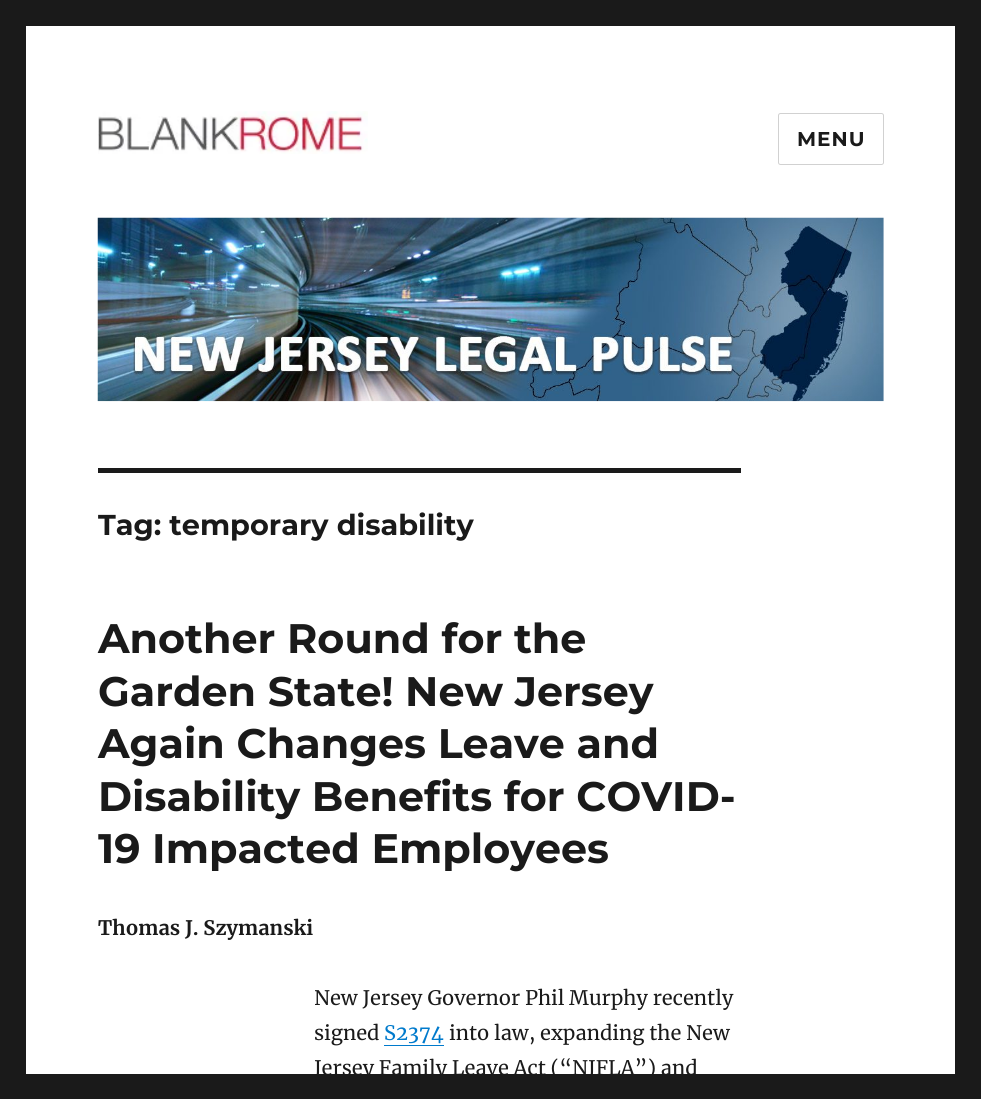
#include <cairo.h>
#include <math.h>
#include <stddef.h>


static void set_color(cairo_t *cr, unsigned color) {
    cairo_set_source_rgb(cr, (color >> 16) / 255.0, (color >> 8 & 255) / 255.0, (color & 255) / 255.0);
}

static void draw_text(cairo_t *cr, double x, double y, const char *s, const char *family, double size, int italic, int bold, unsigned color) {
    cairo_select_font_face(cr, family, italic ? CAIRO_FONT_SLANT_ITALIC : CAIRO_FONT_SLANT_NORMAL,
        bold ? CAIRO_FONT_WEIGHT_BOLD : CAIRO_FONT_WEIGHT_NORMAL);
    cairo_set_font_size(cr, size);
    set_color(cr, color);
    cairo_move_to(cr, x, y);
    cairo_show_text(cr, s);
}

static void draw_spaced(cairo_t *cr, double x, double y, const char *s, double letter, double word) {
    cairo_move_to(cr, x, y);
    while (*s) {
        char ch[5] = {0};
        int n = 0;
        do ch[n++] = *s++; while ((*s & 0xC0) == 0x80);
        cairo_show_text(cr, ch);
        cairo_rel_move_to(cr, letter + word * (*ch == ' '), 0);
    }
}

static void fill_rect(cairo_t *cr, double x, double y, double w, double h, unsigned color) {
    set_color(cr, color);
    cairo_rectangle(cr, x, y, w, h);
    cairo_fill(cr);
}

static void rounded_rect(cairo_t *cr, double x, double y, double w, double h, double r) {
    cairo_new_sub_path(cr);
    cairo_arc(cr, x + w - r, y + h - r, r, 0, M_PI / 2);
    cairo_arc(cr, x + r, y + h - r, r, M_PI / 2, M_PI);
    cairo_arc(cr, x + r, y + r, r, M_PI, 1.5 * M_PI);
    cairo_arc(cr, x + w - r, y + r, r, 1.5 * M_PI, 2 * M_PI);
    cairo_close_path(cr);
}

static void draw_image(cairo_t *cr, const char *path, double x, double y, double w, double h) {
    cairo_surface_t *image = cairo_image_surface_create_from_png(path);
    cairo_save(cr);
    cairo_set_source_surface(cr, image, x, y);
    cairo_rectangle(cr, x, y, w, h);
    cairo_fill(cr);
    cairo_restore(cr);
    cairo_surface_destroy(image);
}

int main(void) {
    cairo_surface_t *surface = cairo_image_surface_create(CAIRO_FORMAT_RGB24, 981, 1099);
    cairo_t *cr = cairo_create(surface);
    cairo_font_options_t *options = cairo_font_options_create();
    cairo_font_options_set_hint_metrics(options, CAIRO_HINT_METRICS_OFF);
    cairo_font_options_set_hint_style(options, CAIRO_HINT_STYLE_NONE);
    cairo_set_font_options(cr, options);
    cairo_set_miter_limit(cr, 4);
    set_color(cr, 0x1A1A1A);
    cairo_paint(cr);
    fill_rect(cr, 26, 26, 929, 1048, 0xFFFFFF);
    draw_image(cr, "assets/img1.png", 98, 111, 270, 43);
    rounded_rect(cr, 778.5, 113.5, 105, 51, 2);
    set_color(cr, 0xD1D1D1);
    cairo_set_line_width(cr, 1);
    cairo_stroke(cr);
    cairo_select_font_face(cr, "Montserrat Thin", CAIRO_FONT_SLANT_NORMAL, CAIRO_FONT_WEIGHT_NORMAL);
    cairo_set_font_size(cr, 20);
    set_color(cr, 0x1A1A1A);
    draw_spaced(cr, 797, 146, "MENU", 1, 0);
    draw_image(cr, "assets/img2.png", 97, 217, 787, 185);
    fill_rect(cr, 98, 468, 643, 5, 0x1A1A1A);
    draw_text(cr, 98, 535, "Tag: temporary disability", "Montserrat Thin", 28.75, 0, 0, 0x1A1A1A);
    draw_text(cr, 98, 653, "Another Round for the", "Montserrat Thin", 41.25, 0, 0, 0x1A1A1A);
    draw_text(cr, 98, 706, "Garden State! New Jersey", "Montserrat Thin", 41.25, 0, 0, 0x1A1A1A);
    draw_text(cr, 98, 758, "Again Changes Leave and", "Montserrat Thin", 41.25, 0, 0, 0x1A1A1A);
    draw_text(cr, 98, 811, "Disability Benefits for COVID-", "Montserrat Thin", 41.25, 0, 0, 0x1A1A1A);
    draw_text(cr, 98, 863, "19 Impacted Employees", "Montserrat Thin", 41.25, 0, 0, 0x1A1A1A);
    draw_text(cr, 98, 935, "Thomas J. Szymanski", "Merriweather", 20, 0, 1, 0x1A1A1A);
    draw_text(cr, 314, 1005, "New Jersey Governor Phil Murphy recently", "Merriweather", 20, 0, 0, 0x1A1A1A);
    draw_text(cr, 314, 1040, "signed", "Merriweather", 20, 0, 0, 0x1A1A1A);
    draw_text(cr, 384, 1040, "S2374", "Merriweather", 20, 0, 0, 0x007ACC);
    cairo_new_path(cr);
    cairo_move_to(cr, 384, 1045);
    cairo_line_to(cr, 384, 1046);
    cairo_line_to(cr, 444, 1046);
    cairo_line_to(cr, 444, 1021);
    cairo_line_to(cr, 444, 1045);
    cairo_close_path(cr);
    cairo_fill(cr);
    draw_text(cr, 449, 1040, "into law, expanding the New", "Merriweather", 20, 0, 0, 0x1A1A1A);
    draw_text(cr, 314, 1075, "Jersey Family Leave Act (“NJFLA”) and", "Merriweather", 20, 0, 0, 0x1A1A1A);
    cairo_surface_write_to_png(surface, "output.png");
    cairo_font_options_destroy(options);
    cairo_destroy(cr);
    cairo_surface_destroy(surface);
    return 0;
}
